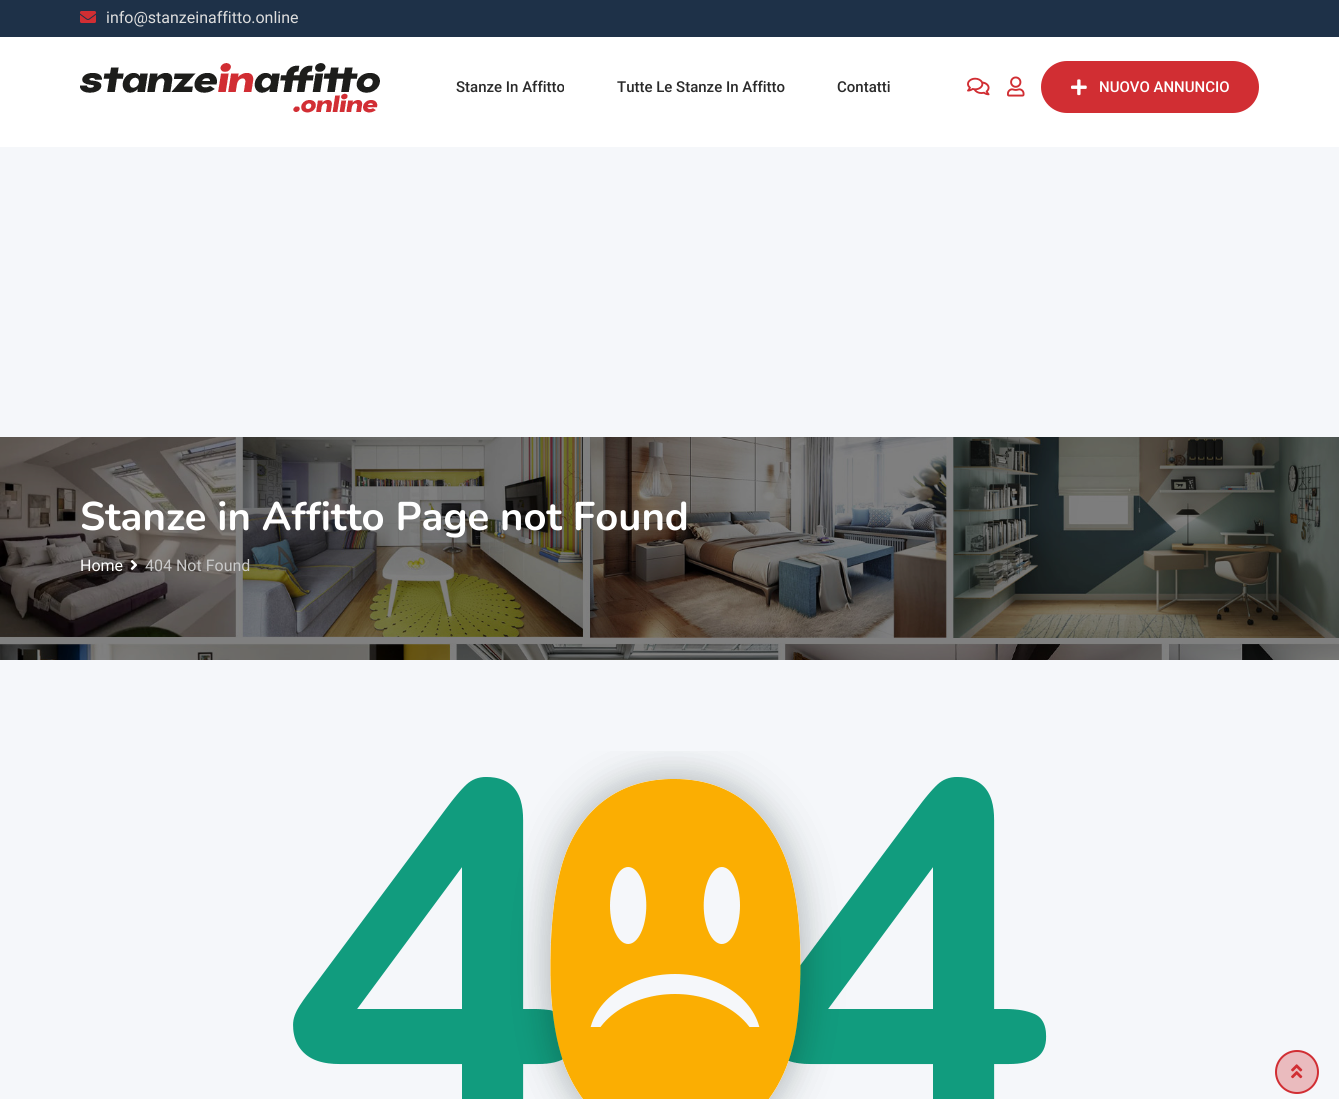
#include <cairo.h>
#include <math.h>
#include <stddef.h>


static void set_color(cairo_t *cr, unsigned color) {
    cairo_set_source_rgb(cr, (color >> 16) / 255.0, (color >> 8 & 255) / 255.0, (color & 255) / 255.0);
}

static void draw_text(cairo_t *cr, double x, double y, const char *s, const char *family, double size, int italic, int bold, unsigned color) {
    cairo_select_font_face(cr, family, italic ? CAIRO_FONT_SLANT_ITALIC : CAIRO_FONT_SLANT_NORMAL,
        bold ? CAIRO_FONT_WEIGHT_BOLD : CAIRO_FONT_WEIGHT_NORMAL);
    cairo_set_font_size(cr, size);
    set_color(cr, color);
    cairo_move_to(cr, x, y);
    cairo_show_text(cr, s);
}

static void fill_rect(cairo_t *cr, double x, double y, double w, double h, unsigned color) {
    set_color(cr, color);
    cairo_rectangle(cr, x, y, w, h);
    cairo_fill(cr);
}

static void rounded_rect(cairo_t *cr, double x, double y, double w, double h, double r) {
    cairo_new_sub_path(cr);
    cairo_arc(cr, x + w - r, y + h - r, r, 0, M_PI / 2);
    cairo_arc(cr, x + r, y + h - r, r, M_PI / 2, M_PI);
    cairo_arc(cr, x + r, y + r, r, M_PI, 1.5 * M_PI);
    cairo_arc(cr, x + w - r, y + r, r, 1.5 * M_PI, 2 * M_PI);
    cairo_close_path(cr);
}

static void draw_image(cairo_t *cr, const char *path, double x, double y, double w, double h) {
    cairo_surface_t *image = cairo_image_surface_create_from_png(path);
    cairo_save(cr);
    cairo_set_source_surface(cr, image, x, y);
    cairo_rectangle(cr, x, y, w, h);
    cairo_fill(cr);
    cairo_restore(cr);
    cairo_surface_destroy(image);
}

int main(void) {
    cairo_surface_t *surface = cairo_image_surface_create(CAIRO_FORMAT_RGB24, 1339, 1099);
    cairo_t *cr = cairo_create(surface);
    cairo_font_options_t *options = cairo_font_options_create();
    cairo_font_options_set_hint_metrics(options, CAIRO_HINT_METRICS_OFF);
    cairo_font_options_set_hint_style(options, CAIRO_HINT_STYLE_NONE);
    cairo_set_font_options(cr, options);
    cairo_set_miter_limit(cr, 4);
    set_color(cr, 0xFFFFFF);
    cairo_paint(cr);
    fill_rect(cr, 0, 0, 1339, 37, 0x1E3148);
    draw_image(cr, "assets/img1.png", 80, 11, 16, 12);
    draw_text(cr, 106, 23, "info@stanzeinaffitto.online", "Roboto", 16, 0, 0, 0xDDDDDD);
    draw_image(cr, "assets/img2.png", 80, 63, 300, 50);
    draw_text(cr, 456, 92, "Stanze In Affitto", "Roboto Medium", 15, 0, 0, 0x2A2A2A);
    draw_text(cr, 617, 92, "Tutte Le Stanze In Affitto", "Roboto Medium", 15, 0, 0, 0x2A2A2A);
    draw_text(cr, 837, 92, "Contatti", "Roboto Medium", 15, 0, 0, 0x2A2A2A);
    draw_image(cr, "assets/img3.png", 967, 77, 23, 19);
    draw_image(cr, "assets/img4.png", 1007, 76, 18, 21);
    set_color(cr, 0xD12E33);
    rounded_rect(cr, 1041, 61, 218, 52, 26);
    cairo_fill(cr);
    draw_image(cr, "assets/img5.png", 1071, 79, 16, 17);
    draw_text(cr, 1099, 92, "NUOVO ANNUNCIO", "Roboto Medium", 15, 0, 0, 0xFFFFFF);
    fill_rect(cr, 0, 147, 1339, 952, 0xF5F7FA);
    draw_image(cr, "assets/img6.png", 0, 437, 1339, 223);
    draw_text(cr, 80, 530, "Stanze in Affitto Page not Found", "Nunito ExtraLight", 40, 0, 0, 0xFFFFFF);
    draw_text(cr, 80, 571, "Home", "Roboto", 16, 0, 0, 0xFFFFFF);
    draw_image(cr, "assets/img7.png", 130, 560, 8, 10);
    draw_text(cr, 145, 571, "404 Not Found", "Roboto", 16, 0, 0, 0xCACACA);
    draw_image(cr, "assets/img8.png", 293, 751, 754, 348);
    set_color(cr, 0xEABBBE);
    cairo_arc(cr, 1297, 1072, 21, 0, 2 * M_PI);
    cairo_fill_preserve(cr);
    set_color(cr, 0xD12E33);
    cairo_stroke(cr);
    draw_image(cr, "assets/img9.png", 1291, 1064, 12, 15);
    cairo_surface_write_to_png(surface, "output.png");
    cairo_font_options_destroy(options);
    cairo_destroy(cr);
    cairo_surface_destroy(surface);
    return 0;
}
